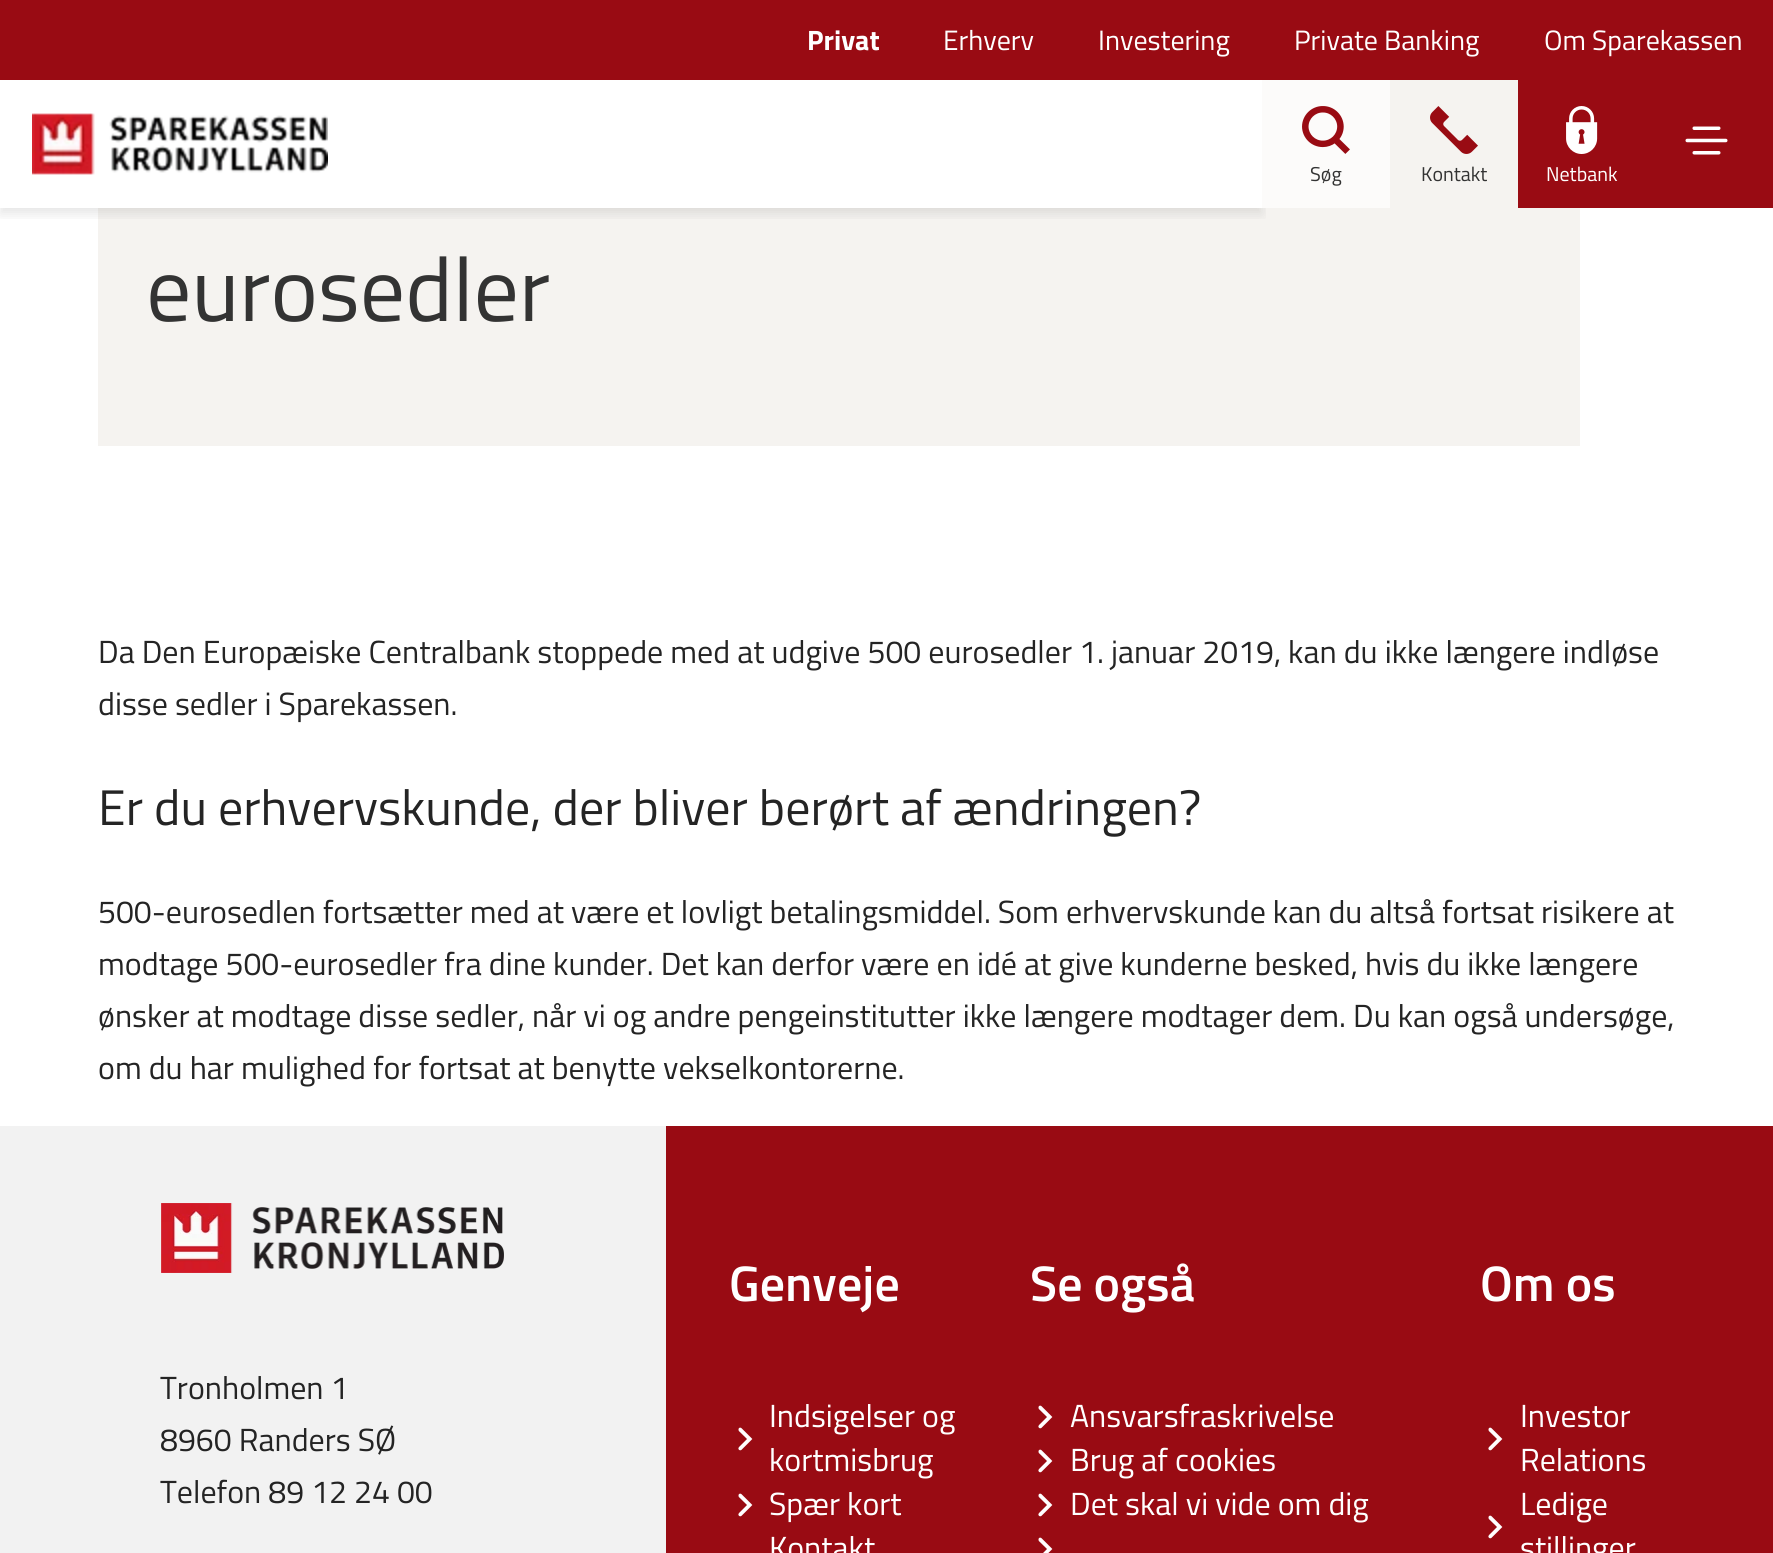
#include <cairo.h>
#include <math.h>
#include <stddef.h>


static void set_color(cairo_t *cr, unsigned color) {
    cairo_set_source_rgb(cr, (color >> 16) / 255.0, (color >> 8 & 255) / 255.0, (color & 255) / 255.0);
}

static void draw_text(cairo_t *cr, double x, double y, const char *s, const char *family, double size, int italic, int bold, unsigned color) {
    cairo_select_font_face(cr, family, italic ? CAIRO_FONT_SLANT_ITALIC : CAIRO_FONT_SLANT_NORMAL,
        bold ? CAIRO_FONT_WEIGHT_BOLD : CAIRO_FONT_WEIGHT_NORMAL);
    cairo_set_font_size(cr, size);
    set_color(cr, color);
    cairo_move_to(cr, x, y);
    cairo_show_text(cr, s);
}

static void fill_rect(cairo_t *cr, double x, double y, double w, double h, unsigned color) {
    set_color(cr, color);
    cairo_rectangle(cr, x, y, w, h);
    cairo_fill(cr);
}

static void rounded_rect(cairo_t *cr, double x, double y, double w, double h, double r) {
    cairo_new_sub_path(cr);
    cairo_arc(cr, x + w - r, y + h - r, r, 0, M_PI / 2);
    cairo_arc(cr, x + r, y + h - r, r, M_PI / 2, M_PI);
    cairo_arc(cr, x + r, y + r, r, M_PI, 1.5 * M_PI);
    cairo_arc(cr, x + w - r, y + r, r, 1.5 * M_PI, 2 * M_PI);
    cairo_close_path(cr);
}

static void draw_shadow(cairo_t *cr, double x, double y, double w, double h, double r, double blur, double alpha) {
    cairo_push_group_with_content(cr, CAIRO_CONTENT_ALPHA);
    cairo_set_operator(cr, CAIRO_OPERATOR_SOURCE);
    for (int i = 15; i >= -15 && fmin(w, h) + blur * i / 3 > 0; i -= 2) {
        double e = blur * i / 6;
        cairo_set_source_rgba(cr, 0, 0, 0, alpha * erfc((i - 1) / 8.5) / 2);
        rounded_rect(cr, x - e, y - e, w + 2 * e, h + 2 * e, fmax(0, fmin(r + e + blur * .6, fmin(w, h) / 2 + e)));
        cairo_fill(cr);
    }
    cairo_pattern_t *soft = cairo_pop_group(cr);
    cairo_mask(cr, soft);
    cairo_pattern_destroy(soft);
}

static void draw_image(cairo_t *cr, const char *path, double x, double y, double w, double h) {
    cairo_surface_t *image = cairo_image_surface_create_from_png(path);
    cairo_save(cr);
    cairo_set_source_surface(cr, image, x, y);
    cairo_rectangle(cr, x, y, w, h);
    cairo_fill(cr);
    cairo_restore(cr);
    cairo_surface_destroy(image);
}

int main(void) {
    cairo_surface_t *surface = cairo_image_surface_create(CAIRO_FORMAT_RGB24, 1773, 1553);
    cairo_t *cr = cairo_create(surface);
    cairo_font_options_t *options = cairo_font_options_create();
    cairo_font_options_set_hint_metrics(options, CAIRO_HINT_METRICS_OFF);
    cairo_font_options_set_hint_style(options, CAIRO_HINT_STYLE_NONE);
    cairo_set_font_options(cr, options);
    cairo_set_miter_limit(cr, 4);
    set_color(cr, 0xFFFFFF);
    cairo_paint(cr);
    fill_rect(cr, 98, 208, 1482, 238, 0xF5F3F0);
    cairo_save(cr);
    cairo_rectangle(cr, 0, 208, 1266, 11);
    cairo_clip(cr);
    set_color(cr, 0x000000);
    draw_shadow(cr, 0, 86, 1262, 128, 0, 6, 0.1);
    cairo_restore(cr);
    fill_rect(cr, 0, 0, 1773, 80, 0x990B13);
    draw_text(cr, 807, 50, "Privat", "Titillium Web", 28, 0, 1, 0xFFFFFF);
    draw_text(cr, 943, 50, "Erhverv", "Titillium Web", 28, 0, 0, 0xFFFFFF);
    draw_text(cr, 1098, 50, "Investering", "Titillium Web", 28, 0, 0, 0xFFFFFF);
    draw_text(cr, 1294, 50, "Private Banking", "Titillium Web", 28, 0, 0, 0xFFFFFF);
    draw_text(cr, 1544, 50, "Om Sparekassen", "Titillium Web", 28, 0, 0, 0xFFFFFF);
    draw_image(cr, "assets/img1.png", 32, 113, 296, 62);
    fill_rect(cr, 1518, 80, 255, 128, 0x990B13);
    draw_image(cr, "assets/img2.png", 1685, 126, 43, 29);
    fill_rect(cr, 1262, 80, 128, 128, 0xFCFBFA);
    draw_image(cr, "assets/img3.png", 1302, 106, 48, 48);
    draw_text(cr, 1310, 181, "Søg", "Titillium Web", 20, 0, 0, 0x333333);
    fill_rect(cr, 1390, 80, 128, 128, 0xF5F3F0);
    draw_image(cr, "assets/img4.png", 1430, 106, 48, 48);
    draw_text(cr, 1421, 181, "Kontakt", "Titillium Web", 20, 0, 0, 0x333333);
    draw_image(cr, "assets/img5.png", 1566, 106, 32, 48);
    draw_text(cr, 1546, 181, "Netbank", "Titillium Web", 20, 0, 0, 0xFFFFFF);
    draw_text(cr, 146, 321, "eurosedler", "Titillium Web", 90, 0, 0, 0x333333);
    draw_text(cr, 98, 663, "Da Den Europæiske Centralbank stoppede med at udgive 500 eurosedler 1. januar 2019, kan du ikke længere indløse", "Titillium Web", 32, 0, 0, 0x242424);
    draw_text(cr, 98, 715, "disse sedler i Sparekassen.", "Titillium Web", 32, 0, 0, 0x242424);
    draw_text(cr, 98, 825, "Er du erhvervskunde, der bliver berørt af ændringen?", "Titillium Web", 50, 0, 0, 0x242424);
    draw_text(cr, 98, 923, "500-eurosedlen fortsætter med at være et lovligt betalingsmiddel. Som erhvervskunde kan du altså fortsat risikere at", "Titillium Web", 32, 0, 0, 0x242424);
    draw_text(cr, 98, 975, "modtage 500-eurosedler fra dine kunder. Det kan derfor være en idé at give kunderne besked, hvis du ikke længere", "Titillium Web", 32, 0, 0, 0x242424);
    draw_text(cr, 98, 1027, "ønsker at modtage disse sedler, når vi og andre pengeinstitutter ikke længere modtager dem. Du kan også undersøge,", "Titillium Web", 32, 0, 0, 0x242424);
    draw_text(cr, 98, 1079, "om du har mulighed for fortsat at benytte vekselkontorerne.", "Titillium Web", 32, 0, 0, 0x242424);
    fill_rect(cr, 666, 1126, 1107, 427, 0x990B13);
    fill_rect(cr, 0, 1126, 666, 427, 0xF2F2F2);
    draw_image(cr, "assets/img6.png", 161, 1203, 343, 70);
    draw_text(cr, 160, 1399, "Tronholmen 1", "Titillium Web", 32, 0, 0, 0x242424);
    draw_text(cr, 160, 1451, "8960 Randers SØ", "Titillium Web", 32, 0, 0, 0x242424);
    draw_text(cr, 160, 1503, "Telefon 89 12 24 00", "Titillium Web", 32, 0, 0, 0x242424);
    draw_text(cr, 729, 1301, "Genveje", "Titillium Web SemiBold", 50, 0, 0, 0xFFFFFF);
    draw_text(cr, 769, 1427, "Indsigelser og", "Titillium Web", 32, 0, 0, 0xFFFFFF);
    draw_image(cr, "assets/img7.png", 738, 1427, 15, 24);
    draw_text(cr, 769, 1471, "kortmisbrug", "Titillium Web", 32, 0, 0, 0xFFFFFF);
    draw_image(cr, "assets/img7.png", 738, 1493, 15, 24);
    draw_text(cr, 769, 1515, "Spær kort", "Titillium Web", 32, 0, 0, 0xFFFFFF);
    draw_text(cr, 769, 1559, "Kontakt", "Titillium Web", 32, 0, 0, 0xFFFFFF);
    draw_text(cr, 1030, 1301, "Se også", "Titillium Web SemiBold", 50, 0, 0, 0xFFFFFF);
    draw_image(cr, "assets/img7.png", 1038, 1405, 15, 24);
    draw_text(cr, 1070, 1427, "Ansvarsfraskrivelse", "Titillium Web", 32, 0, 0, 0xFFFFFF);
    draw_image(cr, "assets/img7.png", 1038, 1449, 15, 24);
    draw_text(cr, 1070, 1471, "Brug af cookies", "Titillium Web", 32, 0, 0, 0xFFFFFF);
    draw_image(cr, "assets/img7.png", 1038, 1493, 15, 24);
    draw_text(cr, 1070, 1515, "Det skal vi vide om dig", "Titillium Web", 32, 0, 0, 0xFFFFFF);
    draw_image(cr, "assets/img8.png", 1038, 1537, 15, 16);
    draw_text(cr, 1480, 1301, "Om os", "Titillium Web SemiBold", 50, 0, 0, 0xFFFFFF);
    draw_text(cr, 1520, 1427, "Investor", "Titillium Web", 32, 0, 0, 0xFFFFFF);
    draw_image(cr, "assets/img7.png", 1488, 1427, 15, 24);
    draw_text(cr, 1520, 1471, "Relations", "Titillium Web", 32, 0, 0, 0xFFFFFF);
    draw_text(cr, 1520, 1515, "Ledige", "Titillium Web", 32, 0, 0, 0xFFFFFF);
    draw_image(cr, "assets/img7.png", 1488, 1515, 15, 24);
    draw_text(cr, 1520, 1559, "stillinger", "Titillium Web", 32, 0, 0, 0xFFFFFF);
    cairo_surface_write_to_png(surface, "output.png");
    cairo_font_options_destroy(options);
    cairo_destroy(cr);
    cairo_surface_destroy(surface);
    return 0;
}
